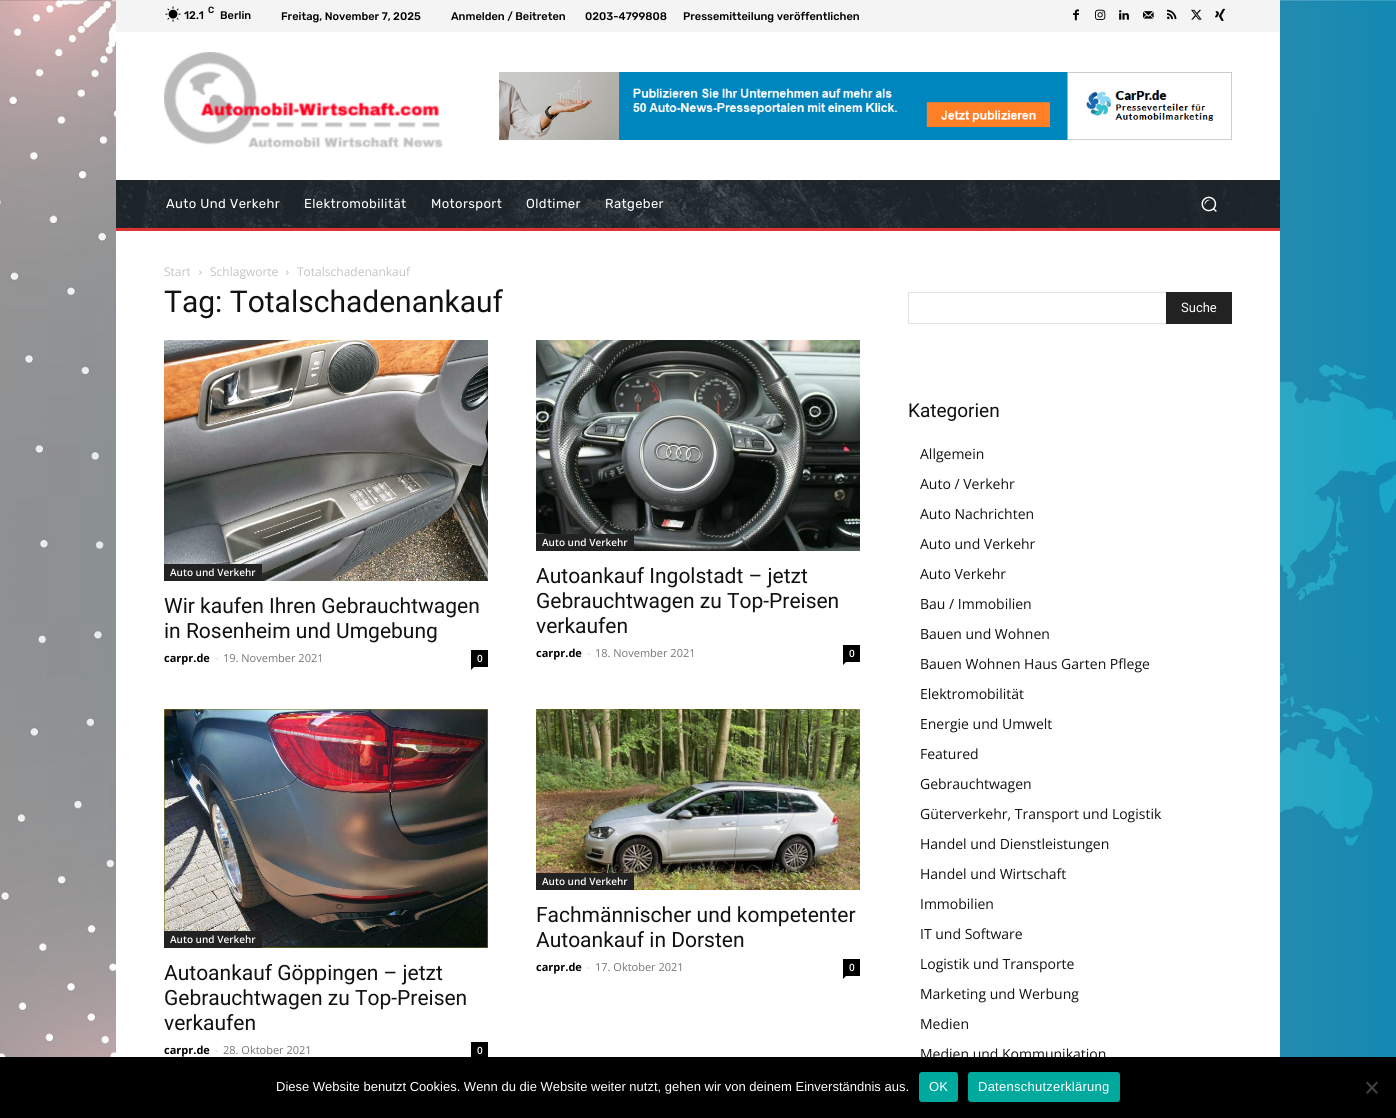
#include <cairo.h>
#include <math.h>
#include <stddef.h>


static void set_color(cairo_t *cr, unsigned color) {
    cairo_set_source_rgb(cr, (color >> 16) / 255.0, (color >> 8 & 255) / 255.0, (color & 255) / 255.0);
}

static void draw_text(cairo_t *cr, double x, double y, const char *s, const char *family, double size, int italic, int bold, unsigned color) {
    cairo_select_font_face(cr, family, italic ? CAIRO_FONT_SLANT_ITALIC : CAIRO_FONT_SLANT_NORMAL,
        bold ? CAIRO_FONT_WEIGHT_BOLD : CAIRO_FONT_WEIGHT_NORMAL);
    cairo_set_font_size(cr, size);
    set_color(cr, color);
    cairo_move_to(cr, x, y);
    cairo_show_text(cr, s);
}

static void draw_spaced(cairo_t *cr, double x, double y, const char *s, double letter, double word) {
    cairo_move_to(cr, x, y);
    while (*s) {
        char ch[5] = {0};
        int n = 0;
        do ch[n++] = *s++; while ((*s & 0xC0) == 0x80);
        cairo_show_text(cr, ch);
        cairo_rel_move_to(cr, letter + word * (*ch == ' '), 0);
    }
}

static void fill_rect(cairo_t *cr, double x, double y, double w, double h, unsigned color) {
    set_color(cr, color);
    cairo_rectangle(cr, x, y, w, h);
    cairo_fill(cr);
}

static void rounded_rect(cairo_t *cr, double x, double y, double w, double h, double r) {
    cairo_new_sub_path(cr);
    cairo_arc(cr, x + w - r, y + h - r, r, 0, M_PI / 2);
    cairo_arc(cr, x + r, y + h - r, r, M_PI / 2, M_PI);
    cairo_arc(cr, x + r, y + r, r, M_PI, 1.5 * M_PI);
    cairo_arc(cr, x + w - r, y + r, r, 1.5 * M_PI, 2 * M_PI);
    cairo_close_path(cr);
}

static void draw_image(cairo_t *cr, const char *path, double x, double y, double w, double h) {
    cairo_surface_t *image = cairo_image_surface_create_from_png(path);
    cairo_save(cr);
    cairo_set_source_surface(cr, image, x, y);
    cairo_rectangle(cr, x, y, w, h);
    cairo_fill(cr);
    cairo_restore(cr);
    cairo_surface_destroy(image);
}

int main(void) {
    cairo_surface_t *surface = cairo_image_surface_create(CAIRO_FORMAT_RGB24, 1396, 1118);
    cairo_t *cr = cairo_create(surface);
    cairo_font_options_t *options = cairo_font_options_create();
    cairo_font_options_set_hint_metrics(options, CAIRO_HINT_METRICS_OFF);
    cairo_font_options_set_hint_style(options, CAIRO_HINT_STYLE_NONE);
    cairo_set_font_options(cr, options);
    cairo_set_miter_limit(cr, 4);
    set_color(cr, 0xFFFFFF);
    cairo_paint(cr);
    draw_image(cr, "assets/img1.png", 0, 0, 1396, 1057);
    fill_rect(cr, 116, 0, 1164, 32, 0xF4F4F4);
    draw_image(cr, "assets/img2.png", 165, 6, 16, 16);
    draw_text(cr, 208, 13, "C", "Rubik Medium", 9, 0, 0, 0x000000);
    draw_text(cr, 184, 19, "12.1", "Rubik Medium", 11, 0, 0, 0x000000);
    draw_text(cr, 220, 19, "Berlin", "Rubik Medium", 11, 0, 0, 0x000000);
    draw_text(cr, 281, 20, "Freitag, November 7, 2025", "Rubik Medium", 11, 0, 0, 0x000000);
    draw_text(cr, 451, 20, "Anmelden / Beitreten", "Rubik Medium", 11, 0, 0, 0x000000);
    draw_text(cr, 585, 20, "0203-4799808", "Rubik Medium", 11, 0, 0, 0x000000);
    draw_text(cr, 683, 20, "Pressemitteilung veröffentlichen", "Rubik Medium", 11, 0, 0, 0x000000);
    draw_image(cr, "assets/img3.png", 1073, 9, 6, 12);
    draw_image(cr, "assets/img4.png", 1095, 9, 11, 11);
    draw_image(cr, "assets/img5.png", 1119, 10, 10, 10);
    draw_image(cr, "assets/img6.png", 1143, 11, 11, 8);
    draw_image(cr, "assets/img7.png", 1167, 9, 10, 11);
    draw_image(cr, "assets/img8.png", 1191, 9, 11, 11);
    draw_image(cr, "assets/img9.png", 1215, 8, 11, 13);
    fill_rect(cr, 116, 32, 1164, 1025, 0xFFFFFF);
    draw_image(cr, "assets/img10.png", 164, 52, 279, 96);
    draw_image(cr, "assets/img11.png", 499, 72, 733, 68);
    fill_rect(cr, 116, 180, 1164, 48, 0x232D35);
    draw_image(cr, "assets/img12.png", 116, 180, 1164, 48);
    cairo_select_font_face(cr, "Rubik", CAIRO_FONT_SLANT_NORMAL, CAIRO_FONT_WEIGHT_NORMAL);
    cairo_set_font_size(cr, 13);
    set_color(cr, 0xFFFFFF);
    draw_spaced(cr, 166, 208, "Auto Und Verkehr", 0.4, 0);
    draw_spaced(cr, 304, 208, "Elektromobilität", 0.4, 0);
    draw_spaced(cr, 431, 208, "Motorsport", 0.4, 0);
    draw_spaced(cr, 526, 208, "Oldtimer", 0.4, 0);
    draw_spaced(cr, 605, 208, "Ratgeber", 0.4, 0);
    draw_image(cr, "assets/img13.png", 1201, 196, 16, 16);
    fill_rect(cr, 116, 228, 1164, 3, 0xDD3333);
    draw_text(cr, 164, 276, "Start", "Open Sans", 12, 0, 0, 0xC3C3C3);
    draw_image(cr, "assets/img14.png", 199, 270, 3, 5);
    draw_text(cr, 210, 276, "Schlagworte", "Open Sans", 12, 0, 0, 0xC3C3C3);
    draw_image(cr, "assets/img14.png", 286, 270, 3, 5);
    draw_text(cr, 297, 276, "Totalschadenankauf", "Open Sans", 12, 0, 0, 0xC3C3C3);
    draw_text(cr, 164, 312, "Tag: Totalschadenankauf", "Roboto", 30, 0, 0, 0x111111);
    draw_image(cr, "assets/img15.png", 164, 340, 324, 241);
    fill_rect(cr, 164, 564, 98, 17, 0x222222);
    draw_text(cr, 170, 576, "Auto und Verkehr", "Open Sans SemiBold", 10, 0, 0, 0xFFFFFF);
    draw_text(cr, 164, 613, "Wir kaufen Ihren Gebrauchtwagen", "Roboto", 21, 0, 0, 0x111111);
    draw_text(cr, 164, 638, "in Rosenheim und Umgebung", "Roboto", 21, 0, 0, 0x111111);
    draw_text(cr, 164, 662, "carpr.de", "Open Sans", 11, 0, 1, 0x000000);
    draw_text(cr, 215, 662, "-", "Open Sans", 11, 0, 0, 0xCCCCCC);
    draw_text(cr, 223, 662, "19. November 2021", "Open Sans", 11, 0, 0, 0x767676);
    fill_rect(cr, 471, 650, 17, 17, 0x000000);
    draw_text(cr, 477, 662, "0", "Open Sans SemiBold", 10, 0, 0, 0xFFFFFF);
    set_color(cr, 0x000000);
    cairo_new_path(cr);
    cairo_move_to(cr, 471, 667);
    cairo_line_to(cr, 474, 667);
    cairo_line_to(cr, 471, 670);
    cairo_close_path(cr);
    cairo_fill(cr);
    draw_image(cr, "assets/img16.png", 536, 340, 324, 211);
    fill_rect(cr, 536, 534, 98, 17, 0x222222);
    draw_text(cr, 542, 546, "Auto und Verkehr", "Open Sans SemiBold", 10, 0, 0, 0xFFFFFF);
    draw_text(cr, 536, 583, "Autoankauf Ingolstadt – jetzt", "Roboto", 21, 0, 0, 0x111111);
    draw_text(cr, 536, 608, "Gebrauchtwagen zu Top-Preisen", "Roboto", 21, 0, 0, 0x111111);
    draw_text(cr, 536, 633, "verkaufen", "Roboto", 21, 0, 0, 0x111111);
    draw_text(cr, 536, 657, "carpr.de", "Open Sans", 11, 0, 1, 0x000000);
    draw_text(cr, 587, 657, "-", "Open Sans", 11, 0, 0, 0xCCCCCC);
    draw_text(cr, 595, 657, "18. November 2021", "Open Sans", 11, 0, 0, 0x767676);
    fill_rect(cr, 843, 645, 17, 17, 0x000000);
    draw_text(cr, 849, 657, "0", "Open Sans SemiBold", 10, 0, 0, 0xFFFFFF);
    set_color(cr, 0x000000);
    cairo_new_path(cr);
    cairo_move_to(cr, 843, 662);
    cairo_line_to(cr, 846, 662);
    cairo_line_to(cr, 843, 665);
    cairo_close_path(cr);
    cairo_fill(cr);
    draw_image(cr, "assets/img17.png", 164, 709, 324, 239);
    fill_rect(cr, 164, 931, 98, 17, 0x222222);
    draw_text(cr, 170, 943, "Auto und Verkehr", "Open Sans SemiBold", 10, 0, 0, 0xFFFFFF);
    draw_text(cr, 164, 980, "Autoankauf Göppingen – jetzt", "Roboto", 21, 0, 0, 0x111111);
    draw_text(cr, 164, 1005, "Gebrauchtwagen zu Top-Preisen", "Roboto", 21, 0, 0, 0x111111);
    draw_text(cr, 164, 1030, "verkaufen", "Roboto", 21, 0, 0, 0x111111);
    draw_text(cr, 164, 1054, "carpr.de", "Open Sans", 11, 0, 1, 0x000000);
    draw_text(cr, 215, 1054, "-", "Open Sans", 11, 0, 0, 0xCCCCCC);
    draw_text(cr, 223, 1054, "28. Oktober 2021", "Open Sans", 11, 0, 0, 0x767676);
    fill_rect(cr, 471, 1042, 17, 15, 0x000000);
    draw_text(cr, 477, 1054, "0", "Open Sans SemiBold", 10, 0, 0, 0xFFFFFF);
    draw_image(cr, "assets/img18.png", 536, 709, 324, 181);
    fill_rect(cr, 536, 873, 98, 17, 0x222222);
    draw_text(cr, 542, 885, "Auto und Verkehr", "Open Sans SemiBold", 10, 0, 0, 0xFFFFFF);
    draw_text(cr, 536, 922, "Fachmännischer und kompetenter", "Roboto", 21, 0, 0, 0x111111);
    draw_text(cr, 536, 947, "Autoankauf in Dorsten", "Roboto", 21, 0, 0, 0x111111);
    draw_text(cr, 536, 971, "carpr.de", "Open Sans", 11, 0, 1, 0x000000);
    draw_text(cr, 587, 971, "-", "Open Sans", 11, 0, 0, 0xCCCCCC);
    draw_text(cr, 595, 971, "17. Oktober 2021", "Open Sans", 11, 0, 0, 0x767676);
    fill_rect(cr, 843, 959, 17, 17, 0x000000);
    draw_text(cr, 849, 971, "0", "Open Sans SemiBold", 10, 0, 0, 0xFFFFFF);
    set_color(cr, 0x000000);
    cairo_new_path(cr);
    cairo_move_to(cr, 843, 976);
    cairo_line_to(cr, 846, 976);
    cairo_line_to(cr, 843, 979);
    cairo_close_path(cr);
    cairo_fill(cr);
    fill_rect(cr, 908, 292, 258, 1, 0xE1E1E1);
    fill_rect(cr, 908, 323, 258, 1, 0xE1E1E1);
    fill_rect(cr, 908, 292, 1, 32, 0xE1E1E1);
    fill_rect(cr, 1166, 292, 66, 32, 0x222222);
    draw_text(cr, 1181, 312, "Suche", "Roboto", 13, 0, 0, 0xFFFFFF);
    draw_text(cr, 908, 417, "Kategorien", "Roboto", 19, 0, 0, 0x111111);
    draw_text(cr, 920, 459, "Allgemein", "Open Sans", 14, 0, 0, 0x111111);
    draw_text(cr, 920, 489, "Auto / Verkehr", "Open Sans", 14, 0, 0, 0x111111);
    draw_text(cr, 920, 519, "Auto Nachrichten", "Open Sans", 14, 0, 0, 0x111111);
    draw_text(cr, 920, 549, "Auto und Verkehr", "Open Sans", 14, 0, 0, 0x111111);
    draw_text(cr, 920, 579, "Auto Verkehr", "Open Sans", 14, 0, 0, 0x111111);
    draw_text(cr, 920, 609, "Bau / Immobilien", "Open Sans", 14, 0, 0, 0x111111);
    draw_text(cr, 920, 639, "Bauen und Wohnen", "Open Sans", 14, 0, 0, 0x111111);
    draw_text(cr, 920, 669, "Bauen Wohnen Haus Garten Pflege", "Open Sans", 14, 0, 0, 0x111111);
    draw_text(cr, 920, 699, "Elektromobilität", "Open Sans", 14, 0, 0, 0x111111);
    draw_text(cr, 920, 729, "Energie und Umwelt", "Open Sans", 14, 0, 0, 0x111111);
    draw_text(cr, 920, 759, "Featured", "Open Sans", 14, 0, 0, 0x111111);
    draw_text(cr, 920, 789, "Gebrauchtwagen", "Open Sans", 14, 0, 0, 0x111111);
    draw_text(cr, 920, 819, "Güterverkehr, Transport und Logistik", "Open Sans", 14, 0, 0, 0x111111);
    draw_text(cr, 920, 849, "Handel und Dienstleistungen", "Open Sans", 14, 0, 0, 0x111111);
    draw_text(cr, 920, 879, "Handel und Wirtschaft", "Open Sans", 14, 0, 0, 0x111111);
    draw_text(cr, 920, 909, "Immobilien", "Open Sans", 14, 0, 0, 0x111111);
    draw_text(cr, 920, 939, "IT und Software", "Open Sans", 14, 0, 0, 0x111111);
    draw_text(cr, 920, 969, "Logistik und Transporte", "Open Sans", 14, 0, 0, 0x111111);
    draw_text(cr, 920, 999, "Marketing und Werbung", "Open Sans", 14, 0, 0, 0x111111);
    draw_text(cr, 920, 1029, "Medien", "Open Sans", 14, 0, 0, 0x111111);
    draw_text(cr, 920, 1059, "Medien und Kommunikation", "Open Sans", 14, 0, 0, 0x111111);
    fill_rect(cr, 0, 1057, 1396, 61, 0x000000);
    draw_text(cr, 276, 1091, "Diese Website benutzt Cookies. Wenn du die Website weiter nutzt, gehen wir von deinem Einverständnis aus.", "Liberation Sans", 13, 0, 0, 0xFFFFFF);
    set_color(cr, 0x00A99D);
    rounded_rect(cr, 919, 1072, 39, 30, 3);
    cairo_fill(cr);
    set_color(cr, 0xFFFFFF);
    draw_spaced(cr, 929, 1091, "OK", 0.25, 0);
    set_color(cr, 0x00A99D);
    rounded_rect(cr, 968, 1072, 152, 30, 3);
    cairo_fill(cr);
    set_color(cr, 0xFFFFFF);
    draw_spaced(cr, 978, 1091, "Datenschutzerklärung", 0.25, 0);
    set_color(cr, 0x404040);
    cairo_new_path(cr);
    cairo_move_to(cr, 1376.5, 1081.5);
    cairo_line_to(cr, 1378, 1083);
    cairo_line_to(cr, 1367.5, 1094);
    cairo_line_to(cr, 1366, 1092.5);
    cairo_close_path(cr);
    cairo_fill(cr);
    cairo_new_path(cr);
    cairo_move_to(cr, 1366, 1083);
    cairo_line_to(cr, 1367.5, 1081.5);
    cairo_line_to(cr, 1378, 1092.5);
    cairo_line_to(cr, 1376.5, 1094);
    cairo_close_path(cr);
    cairo_fill(cr);
    cairo_surface_write_to_png(surface, "output.png");
    cairo_font_options_destroy(options);
    cairo_destroy(cr);
    cairo_surface_destroy(surface);
    return 0;
}
